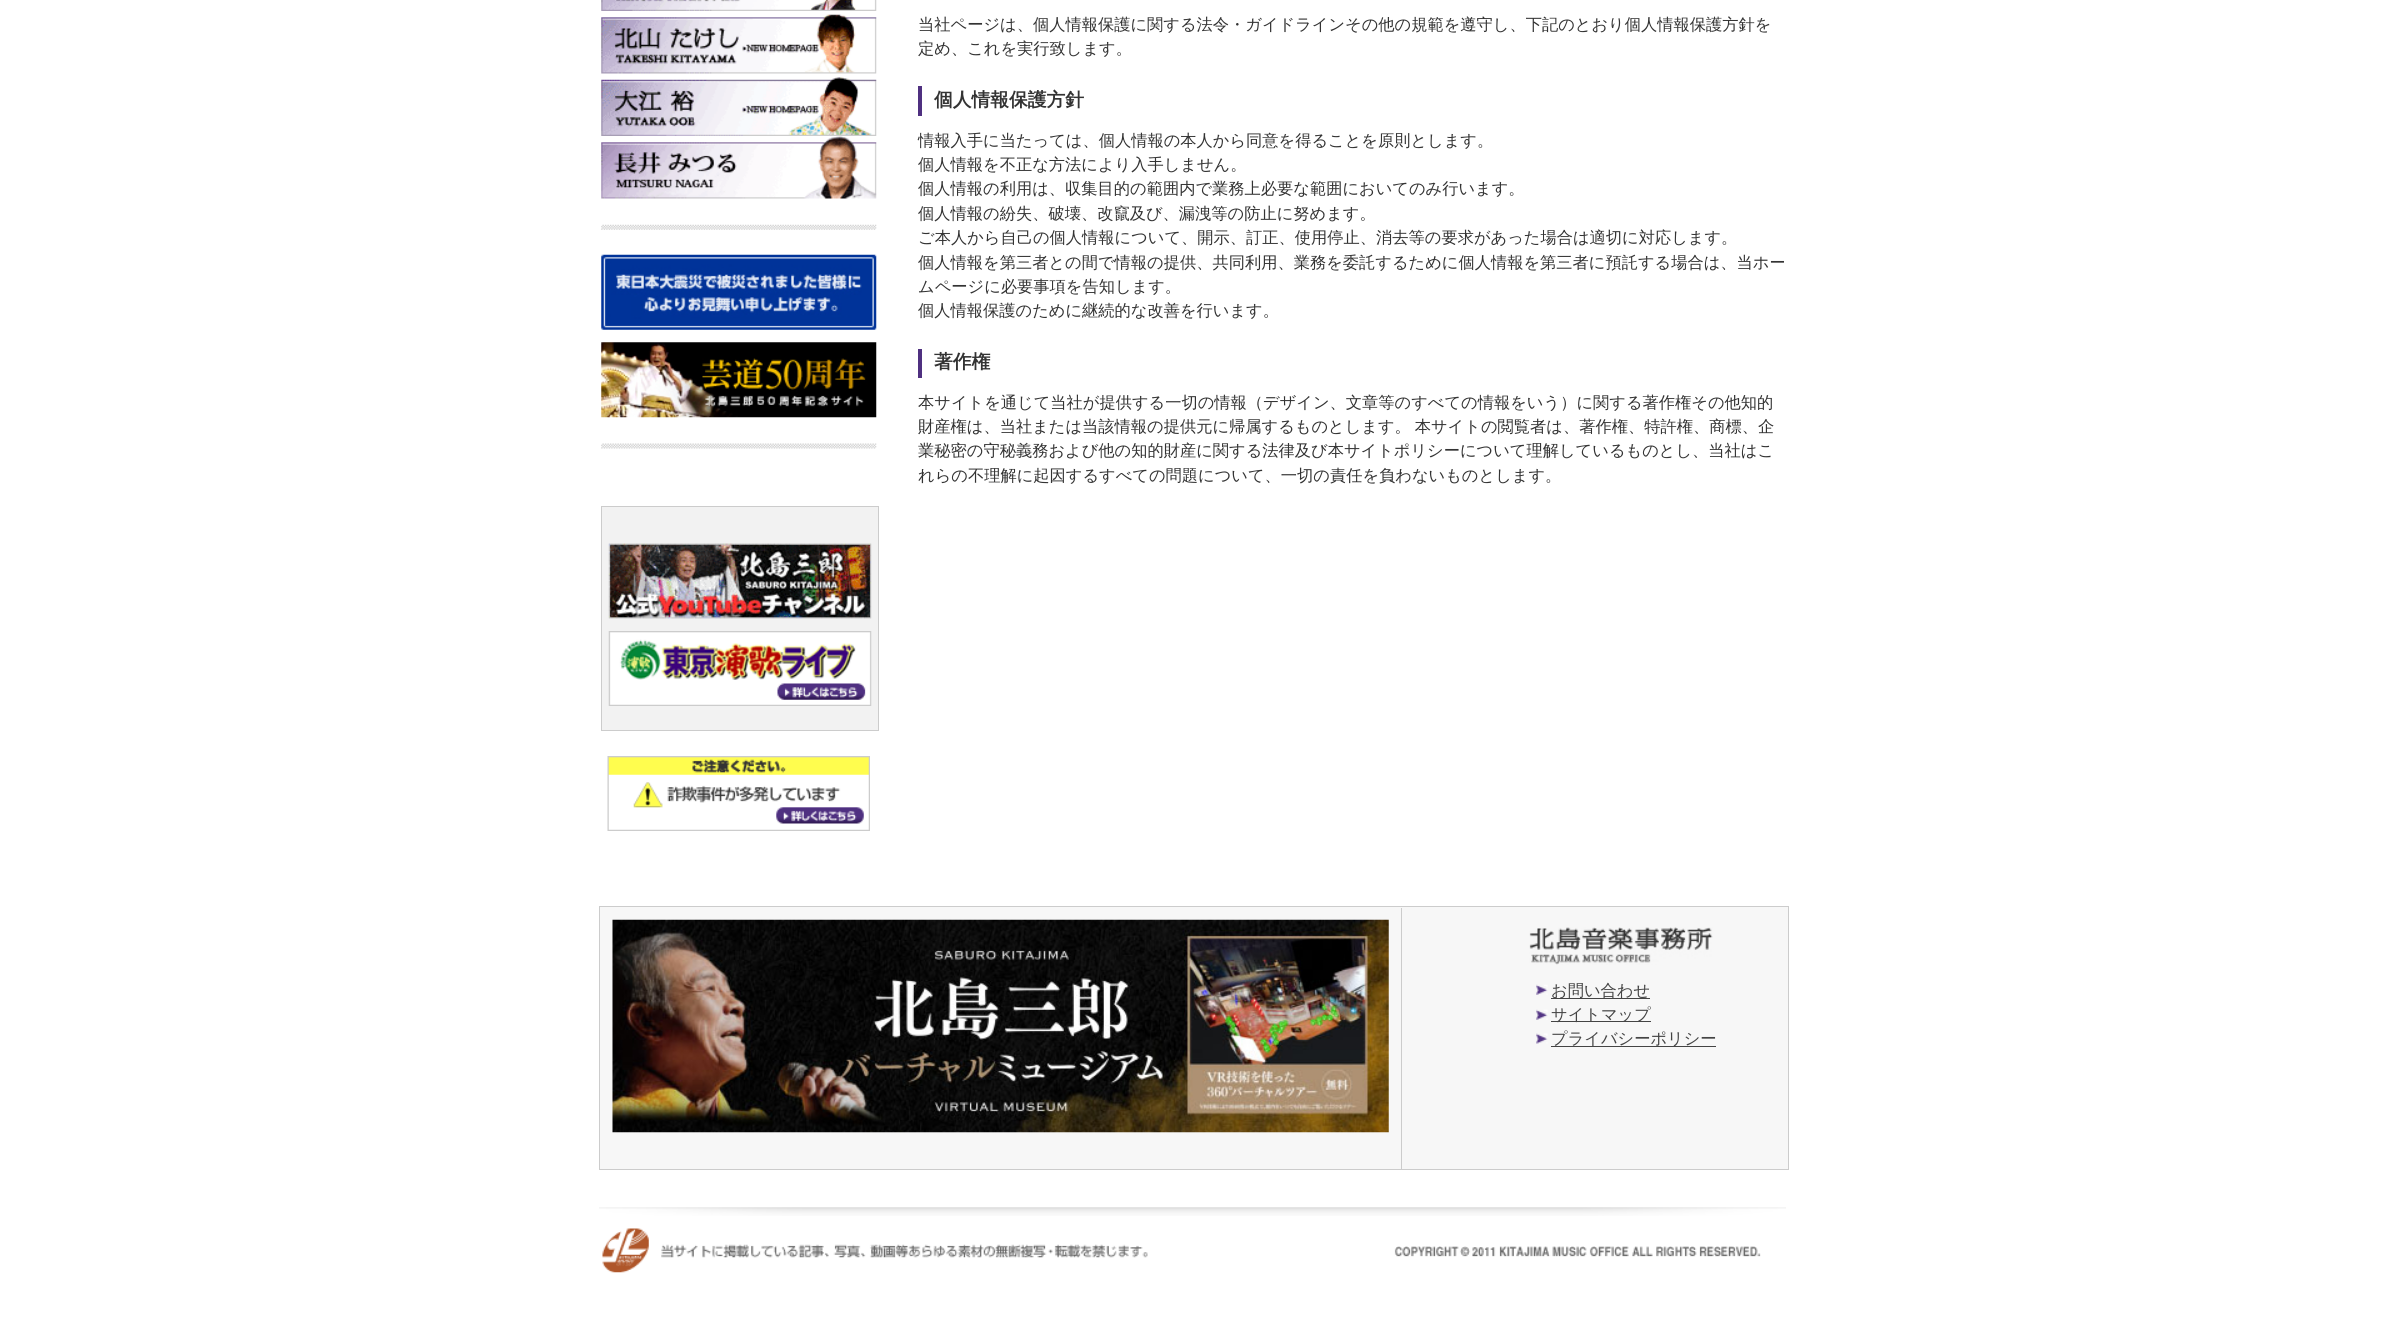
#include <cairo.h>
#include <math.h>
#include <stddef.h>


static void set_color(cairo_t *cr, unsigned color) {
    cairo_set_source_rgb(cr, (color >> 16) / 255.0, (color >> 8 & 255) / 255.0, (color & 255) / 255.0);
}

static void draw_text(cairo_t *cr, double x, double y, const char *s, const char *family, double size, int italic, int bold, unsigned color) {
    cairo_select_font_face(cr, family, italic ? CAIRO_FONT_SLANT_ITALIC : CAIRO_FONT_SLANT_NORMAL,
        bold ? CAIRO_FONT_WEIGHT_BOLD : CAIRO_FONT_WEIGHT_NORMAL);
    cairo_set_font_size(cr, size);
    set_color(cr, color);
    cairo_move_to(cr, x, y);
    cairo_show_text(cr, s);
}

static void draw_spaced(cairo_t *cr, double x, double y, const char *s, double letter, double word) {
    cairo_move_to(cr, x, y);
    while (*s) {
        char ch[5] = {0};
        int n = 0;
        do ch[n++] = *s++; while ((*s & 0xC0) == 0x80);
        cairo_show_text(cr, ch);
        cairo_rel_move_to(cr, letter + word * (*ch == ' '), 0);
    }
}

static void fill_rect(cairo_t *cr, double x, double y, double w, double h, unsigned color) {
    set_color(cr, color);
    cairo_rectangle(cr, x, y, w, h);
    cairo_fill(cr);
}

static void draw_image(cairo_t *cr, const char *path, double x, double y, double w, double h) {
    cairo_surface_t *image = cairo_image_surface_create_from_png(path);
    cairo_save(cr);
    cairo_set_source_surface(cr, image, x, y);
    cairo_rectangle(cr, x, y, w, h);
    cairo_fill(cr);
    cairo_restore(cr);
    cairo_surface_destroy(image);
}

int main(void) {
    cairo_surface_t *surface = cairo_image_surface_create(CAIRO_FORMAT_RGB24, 2384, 1323);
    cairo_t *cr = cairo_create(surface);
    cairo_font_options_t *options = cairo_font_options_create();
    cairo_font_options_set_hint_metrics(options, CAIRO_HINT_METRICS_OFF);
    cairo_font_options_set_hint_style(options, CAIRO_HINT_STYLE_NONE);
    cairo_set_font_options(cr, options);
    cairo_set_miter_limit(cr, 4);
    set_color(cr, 0xFFFFFF);
    cairo_paint(cr);
    draw_image(cr, "assets/img1.png", 601, 224, 276, 6);
    draw_image(cr, "assets/img2.png", 601, 0, 276, 11);
    draw_image(cr, "assets/img3.png", 601, 14, 276, 60);
    draw_image(cr, "assets/img4.png", 601, 77, 276, 59);
    draw_image(cr, "assets/img5.png", 601, 136, 276, 63);
    draw_image(cr, "assets/img6.png", 601, 443, 276, 6);
    draw_image(cr, "assets/img7.png", 601, 254, 276, 76);
    draw_image(cr, "assets/img8.png", 601, 342, 276, 76);
    set_color(cr, 0xF2F2F2);
    cairo_rectangle(cr, 601.5, 506.5, 277, 224);
    cairo_fill_preserve(cr);
    set_color(cr, 0xCCCCCC);
    cairo_set_line_width(cr, 1);
    cairo_stroke(cr);
    draw_image(cr, "assets/img9.png", 608, 543, 264, 76);
    draw_image(cr, "assets/img10.png", 608, 631, 264, 75);
    draw_image(cr, "assets/img11.png", 607, 756, 263, 75);
    draw_text(cr, 918, 30, "当社ページは、個人情報保護に関する法令・ガイドラインその他の規範を遵守し、下記のとおり個人情報保護方針を", "WenQuanYi Zen Hei Medium", 16.25, 0, 0, 0x333333);
    draw_text(cr, 918, 54, "定め、これを実行致します。", "WenQuanYi Zen Hei Medium", 16.25, 0, 0, 0x333333);
    fill_rect(cr, 918, 86, 4, 30, 0x4F3080);
    draw_text(cr, 934, 106, "個人情報保護方針", "WenQuanYi Zen Hei", 18.75, 0, 1, 0x333333);
    draw_text(cr, 918, 146, "情報入手に当たっては、個人情報の本人から同意を得ることを原則とします。", "WenQuanYi Zen Hei Medium", 16.25, 0, 0, 0x333333);
    draw_text(cr, 918, 170, "個人情報を不正な方法により入手しません。", "WenQuanYi Zen Hei Medium", 16.25, 0, 0, 0x333333);
    draw_text(cr, 918, 194, "個人情報の利用は、収集目的の範囲内で業務上必要な範囲においてのみ行います。", "WenQuanYi Zen Hei Medium", 16.25, 0, 0, 0x333333);
    draw_text(cr, 918, 219, "個人情報の紛失、破壊、改竄及び、漏洩等の防止に努めます。", "WenQuanYi Zen Hei Medium", 16.25, 0, 0, 0x333333);
    draw_text(cr, 918, 243, "ご本人から自己の個人情報について、開示、訂正、使用停止、消去等の要求があった場合は適切に対応します。", "WenQuanYi Zen Hei Medium", 16.25, 0, 0, 0x333333);
    draw_text(cr, 918, 268, "個人情報を第三者との間で情報の提供、共同利用、業務を委託するために個人情報を第三者に預託する場合は、当ホー", "WenQuanYi Zen Hei Medium", 16.25, 0, 0, 0x333333);
    draw_text(cr, 918, 292, "ムページに必要事項を告知します。", "WenQuanYi Zen Hei Medium", 16.25, 0, 0, 0x333333);
    draw_text(cr, 918, 316, "個人情報保護のために継続的な改善を行います。", "WenQuanYi Zen Hei Medium", 16.25, 0, 0, 0x333333);
    fill_rect(cr, 918, 349, 4, 29, 0x4F3080);
    draw_text(cr, 934, 368, "著作権", "WenQuanYi Zen Hei", 18.75, 0, 1, 0x333333);
    draw_text(cr, 918, 408, "本サイトを通じて当社が提供する一切の情報（デザイン、文章等のすべての情報をいう）に関する著作権その他知的", "WenQuanYi Zen Hei Medium", 16.25, 0, 0, 0x333333);
    draw_spaced(cr, 918, 432, "財産権は、当社または当該情報の提供元に帰属するものとします。 本サイトの閲覧者は、著作権、特許権、商標、企", 0, -1);
    draw_text(cr, 918, 456, "業秘密の守秘義務および他の知的財産に関する法律及び本サイトポリシーについて理解しているものとし、当社はこ", "WenQuanYi Zen Hei Medium", 16.25, 0, 0, 0x333333);
    draw_text(cr, 918, 481, "れらの不理解に起因するすべての問題について、一切の責任を負わないものとします。", "WenQuanYi Zen Hei Medium", 16.25, 0, 0, 0x333333);
    set_color(cr, 0xF7F7F7);
    cairo_rectangle(cr, 599.5, 906.5, 1189, 263);
    cairo_fill_preserve(cr);
    set_color(cr, 0xCCCCCC);
    cairo_stroke(cr);
    fill_rect(cr, 1401, 908, 1, 261, 0xCCCCCC);
    draw_image(cr, "assets/img12.png", 612, 919, 777, 214);
    draw_image(cr, "assets/img13.png", 1529, 927, 184, 38);
    draw_image(cr, "assets/img14.png", 1536, 984, 12, 11);
    fill_rect(cr, 1551, 998, 99, 1, 0x444444);
    draw_text(cr, 1551, 996, "お問い合わせ", "WenQuanYi Zen Hei Medium", 16.25, 0, 0, 0x444444);
    draw_image(cr, "assets/img14.png", 1536, 1009, 12, 11);
    fill_rect(cr, 1551, 1021, 100, 1, 0x444444);
    draw_text(cr, 1551, 1020, "サイトマップ", "WenQuanYi Zen Hei Medium", 16.25, 0, 0, 0x444444);
    draw_image(cr, "assets/img15.png", 1536, 1033, 12, 11);
    fill_rect(cr, 1551, 1046, 165, 1, 0x444444);
    draw_text(cr, 1551, 1044, "プライバシーポリシー", "WenQuanYi Zen Hei Medium", 16.25, 0, 0, 0x444444);
    draw_image(cr, "assets/img16.png", 599, 1207, 1187, 9);
    draw_image(cr, "assets/img17.png", 602, 1228, 47, 45);
    draw_image(cr, "assets/img18.png", 661, 1244, 487, 14);
    draw_image(cr, "assets/img19.png", 1394, 1246, 367, 11);
    cairo_surface_write_to_png(surface, "output.png");
    cairo_font_options_destroy(options);
    cairo_destroy(cr);
    cairo_surface_destroy(surface);
    return 0;
}
